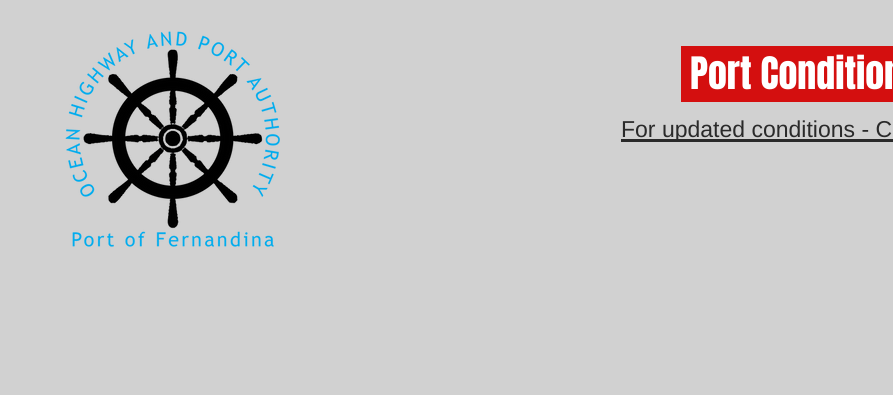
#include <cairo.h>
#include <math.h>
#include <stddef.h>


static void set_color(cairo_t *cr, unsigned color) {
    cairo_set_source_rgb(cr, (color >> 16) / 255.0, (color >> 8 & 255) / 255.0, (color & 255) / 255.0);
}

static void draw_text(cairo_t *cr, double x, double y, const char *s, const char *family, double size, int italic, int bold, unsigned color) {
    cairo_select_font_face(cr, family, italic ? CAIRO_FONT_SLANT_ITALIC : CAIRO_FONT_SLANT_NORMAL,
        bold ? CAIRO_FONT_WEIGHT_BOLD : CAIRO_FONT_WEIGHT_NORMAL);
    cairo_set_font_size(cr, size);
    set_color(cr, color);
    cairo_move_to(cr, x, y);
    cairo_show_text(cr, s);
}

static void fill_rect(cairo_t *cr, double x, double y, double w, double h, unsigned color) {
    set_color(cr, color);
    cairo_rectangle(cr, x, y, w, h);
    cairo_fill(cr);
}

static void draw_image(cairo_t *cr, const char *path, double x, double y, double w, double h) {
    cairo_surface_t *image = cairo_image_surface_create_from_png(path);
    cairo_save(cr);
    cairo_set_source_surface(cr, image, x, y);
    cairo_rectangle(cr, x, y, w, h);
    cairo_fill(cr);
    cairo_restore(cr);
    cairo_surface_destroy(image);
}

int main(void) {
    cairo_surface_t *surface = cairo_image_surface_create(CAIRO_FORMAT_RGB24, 893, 395);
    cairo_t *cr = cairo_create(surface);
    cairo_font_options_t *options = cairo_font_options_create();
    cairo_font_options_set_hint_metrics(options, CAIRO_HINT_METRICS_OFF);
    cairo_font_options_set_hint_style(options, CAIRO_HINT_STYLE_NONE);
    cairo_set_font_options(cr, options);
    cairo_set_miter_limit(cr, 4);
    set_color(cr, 0xD1D1D1);
    cairo_paint(cr);
    draw_image(cr, "assets/img1.png", 65, 31, 215, 216);
    fill_rect(cr, 681, 46, 212, 56, 0xD40F0F);
    draw_text(cr, 690, 89, "Port Condition", "Anton", 38, 0, 0, 0xFFFFFF);
    fill_rect(cr, 621, 139, 272, 3, 0x2A2A2A);
    draw_text(cr, 621, 137, "For updated conditions - C", "Liberation Sans", 23, 0, 0, 0x2A2A2A);
    cairo_surface_write_to_png(surface, "output.png");
    cairo_font_options_destroy(options);
    cairo_destroy(cr);
    cairo_surface_destroy(surface);
    return 0;
}
